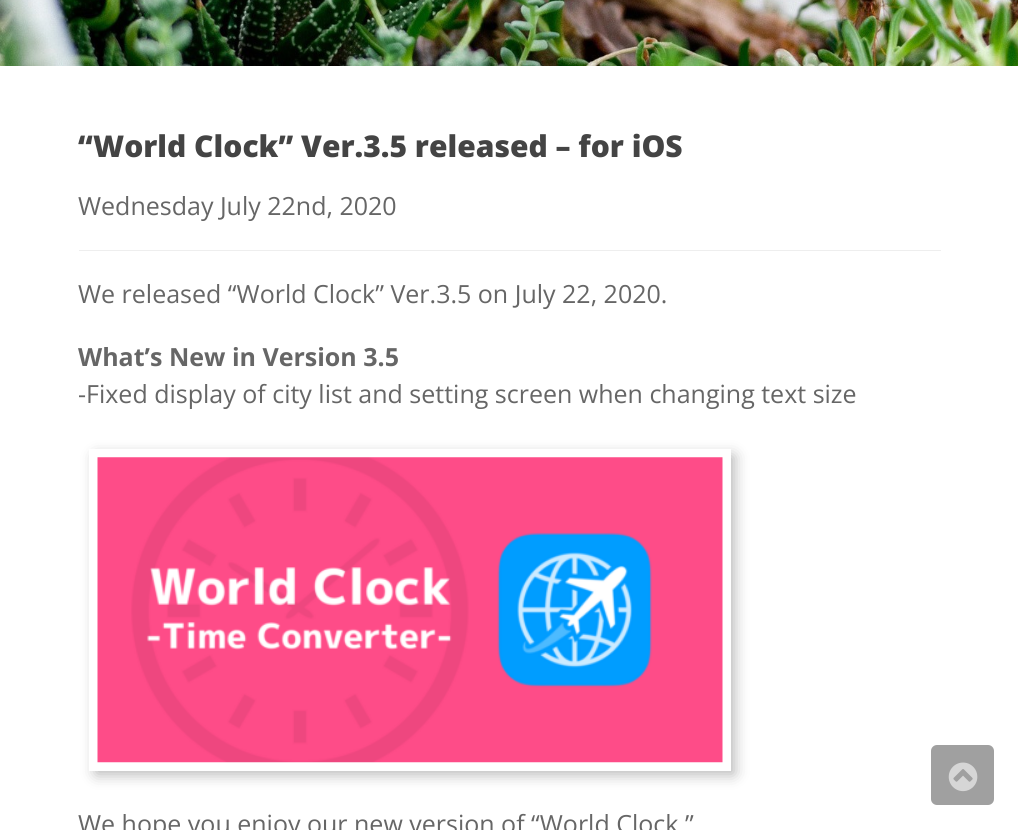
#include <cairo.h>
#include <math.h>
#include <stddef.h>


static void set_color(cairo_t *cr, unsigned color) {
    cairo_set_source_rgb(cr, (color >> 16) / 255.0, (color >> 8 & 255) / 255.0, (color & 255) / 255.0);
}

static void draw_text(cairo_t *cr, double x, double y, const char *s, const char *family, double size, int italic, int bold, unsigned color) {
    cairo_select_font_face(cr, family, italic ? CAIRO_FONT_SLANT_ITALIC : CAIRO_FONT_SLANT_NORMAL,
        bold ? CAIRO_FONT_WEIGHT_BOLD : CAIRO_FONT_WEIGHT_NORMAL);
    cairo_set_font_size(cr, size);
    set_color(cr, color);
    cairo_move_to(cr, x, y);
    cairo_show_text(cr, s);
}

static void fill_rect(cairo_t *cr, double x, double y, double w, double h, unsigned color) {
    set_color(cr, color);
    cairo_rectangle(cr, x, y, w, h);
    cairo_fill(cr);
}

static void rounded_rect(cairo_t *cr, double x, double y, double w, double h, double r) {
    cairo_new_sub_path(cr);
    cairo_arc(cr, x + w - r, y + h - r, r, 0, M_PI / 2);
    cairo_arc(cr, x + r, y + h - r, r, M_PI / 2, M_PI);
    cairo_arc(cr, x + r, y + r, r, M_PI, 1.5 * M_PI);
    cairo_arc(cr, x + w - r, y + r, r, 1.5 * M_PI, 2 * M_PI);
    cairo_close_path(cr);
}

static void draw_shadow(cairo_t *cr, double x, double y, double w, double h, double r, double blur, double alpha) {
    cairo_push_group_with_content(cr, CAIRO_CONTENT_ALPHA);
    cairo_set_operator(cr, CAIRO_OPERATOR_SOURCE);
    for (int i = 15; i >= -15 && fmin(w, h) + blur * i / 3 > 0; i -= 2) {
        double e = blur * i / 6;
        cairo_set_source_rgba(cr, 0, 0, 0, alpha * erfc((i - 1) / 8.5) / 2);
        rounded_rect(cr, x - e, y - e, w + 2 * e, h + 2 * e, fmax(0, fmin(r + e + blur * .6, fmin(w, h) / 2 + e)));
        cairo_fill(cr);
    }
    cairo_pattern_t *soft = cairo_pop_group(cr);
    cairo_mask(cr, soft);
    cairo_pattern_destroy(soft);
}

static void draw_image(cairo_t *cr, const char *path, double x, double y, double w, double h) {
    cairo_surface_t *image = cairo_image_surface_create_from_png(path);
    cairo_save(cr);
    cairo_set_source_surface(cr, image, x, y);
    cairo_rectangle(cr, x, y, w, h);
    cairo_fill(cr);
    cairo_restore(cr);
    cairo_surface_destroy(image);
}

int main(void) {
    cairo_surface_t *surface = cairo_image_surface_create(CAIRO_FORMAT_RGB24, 1018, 830);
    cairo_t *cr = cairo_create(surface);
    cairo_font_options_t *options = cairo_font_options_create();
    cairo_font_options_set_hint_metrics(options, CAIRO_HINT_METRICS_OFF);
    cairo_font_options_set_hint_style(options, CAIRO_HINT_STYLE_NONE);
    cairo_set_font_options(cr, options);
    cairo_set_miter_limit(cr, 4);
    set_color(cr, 0xFFFFFF);
    cairo_paint(cr);
    draw_image(cr, "assets/img1.png", 0, 0, 1018, 66);
    draw_text(cr, 78, 157, "“World Clock” Ver.3.5 released – for iOS", "Open Sans ExtraBold", 30, 0, 0, 0x444444);
    draw_text(cr, 78, 215, "Wednesday July 22nd, 2020", "Open Sans", 25, 0, 0, 0x666666);
    fill_rect(cr, 79, 250, 862, 1, 0xEEEEEE);
    draw_text(cr, 78, 303, "We released “World Clock” Ver.3.5 on July 22, 2020.", "Open Sans", 25, 0, 0, 0x666666);
    draw_text(cr, 78, 366, "What’s New in Version 3.5", "Open Sans", 25, 0, 1, 0x666666);
    draw_text(cr, 78, 403, "-Fixed display of city list and setting screen when changing text size", "Open Sans", 25, 0, 0, 0x666666);
    cairo_save(cr);
    cairo_set_fill_rule(cr, CAIRO_FILL_RULE_EVEN_ODD);
    cairo_new_path(cr);
    cairo_move_to(cr, 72, 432);
    cairo_line_to(cr, 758, 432);
    cairo_line_to(cr, 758, 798);
    cairo_line_to(cr, 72, 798);
    cairo_close_path(cr);
    cairo_move_to(cr, 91, 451);
    cairo_line_to(cr, 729, 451);
    cairo_line_to(cr, 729, 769);
    cairo_line_to(cr, 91, 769);
    cairo_close_path(cr);
    cairo_clip(cr);
    set_color(cr, 0x000000);
    draw_shadow(cr, 96, 456, 638, 318, 0, 7.5, 0.3);
    cairo_restore(cr);
    cairo_rectangle(cr, 90.5, 450.5, 639, 319);
    set_color(cr, 0xFFFFFF);
    cairo_set_line_width(cr, 3);
    cairo_stroke(cr);
    draw_image(cr, "assets/img2.png", 97, 457, 626, 306);
    draw_text(cr, 78, 833, "We hope you enjoy our new version of “World Clock.”", "Open Sans", 25, 0, 0, 0x666666);
    set_color(cr, 0xA0A0A0);
    rounded_rect(cr, 931, 745, 63, 60, 6);
    cairo_fill(cr);
    draw_image(cr, "assets/img3.png", 948, 762, 30, 30);
    cairo_surface_write_to_png(surface, "output.png");
    cairo_font_options_destroy(options);
    cairo_destroy(cr);
    cairo_surface_destroy(surface);
    return 0;
}
